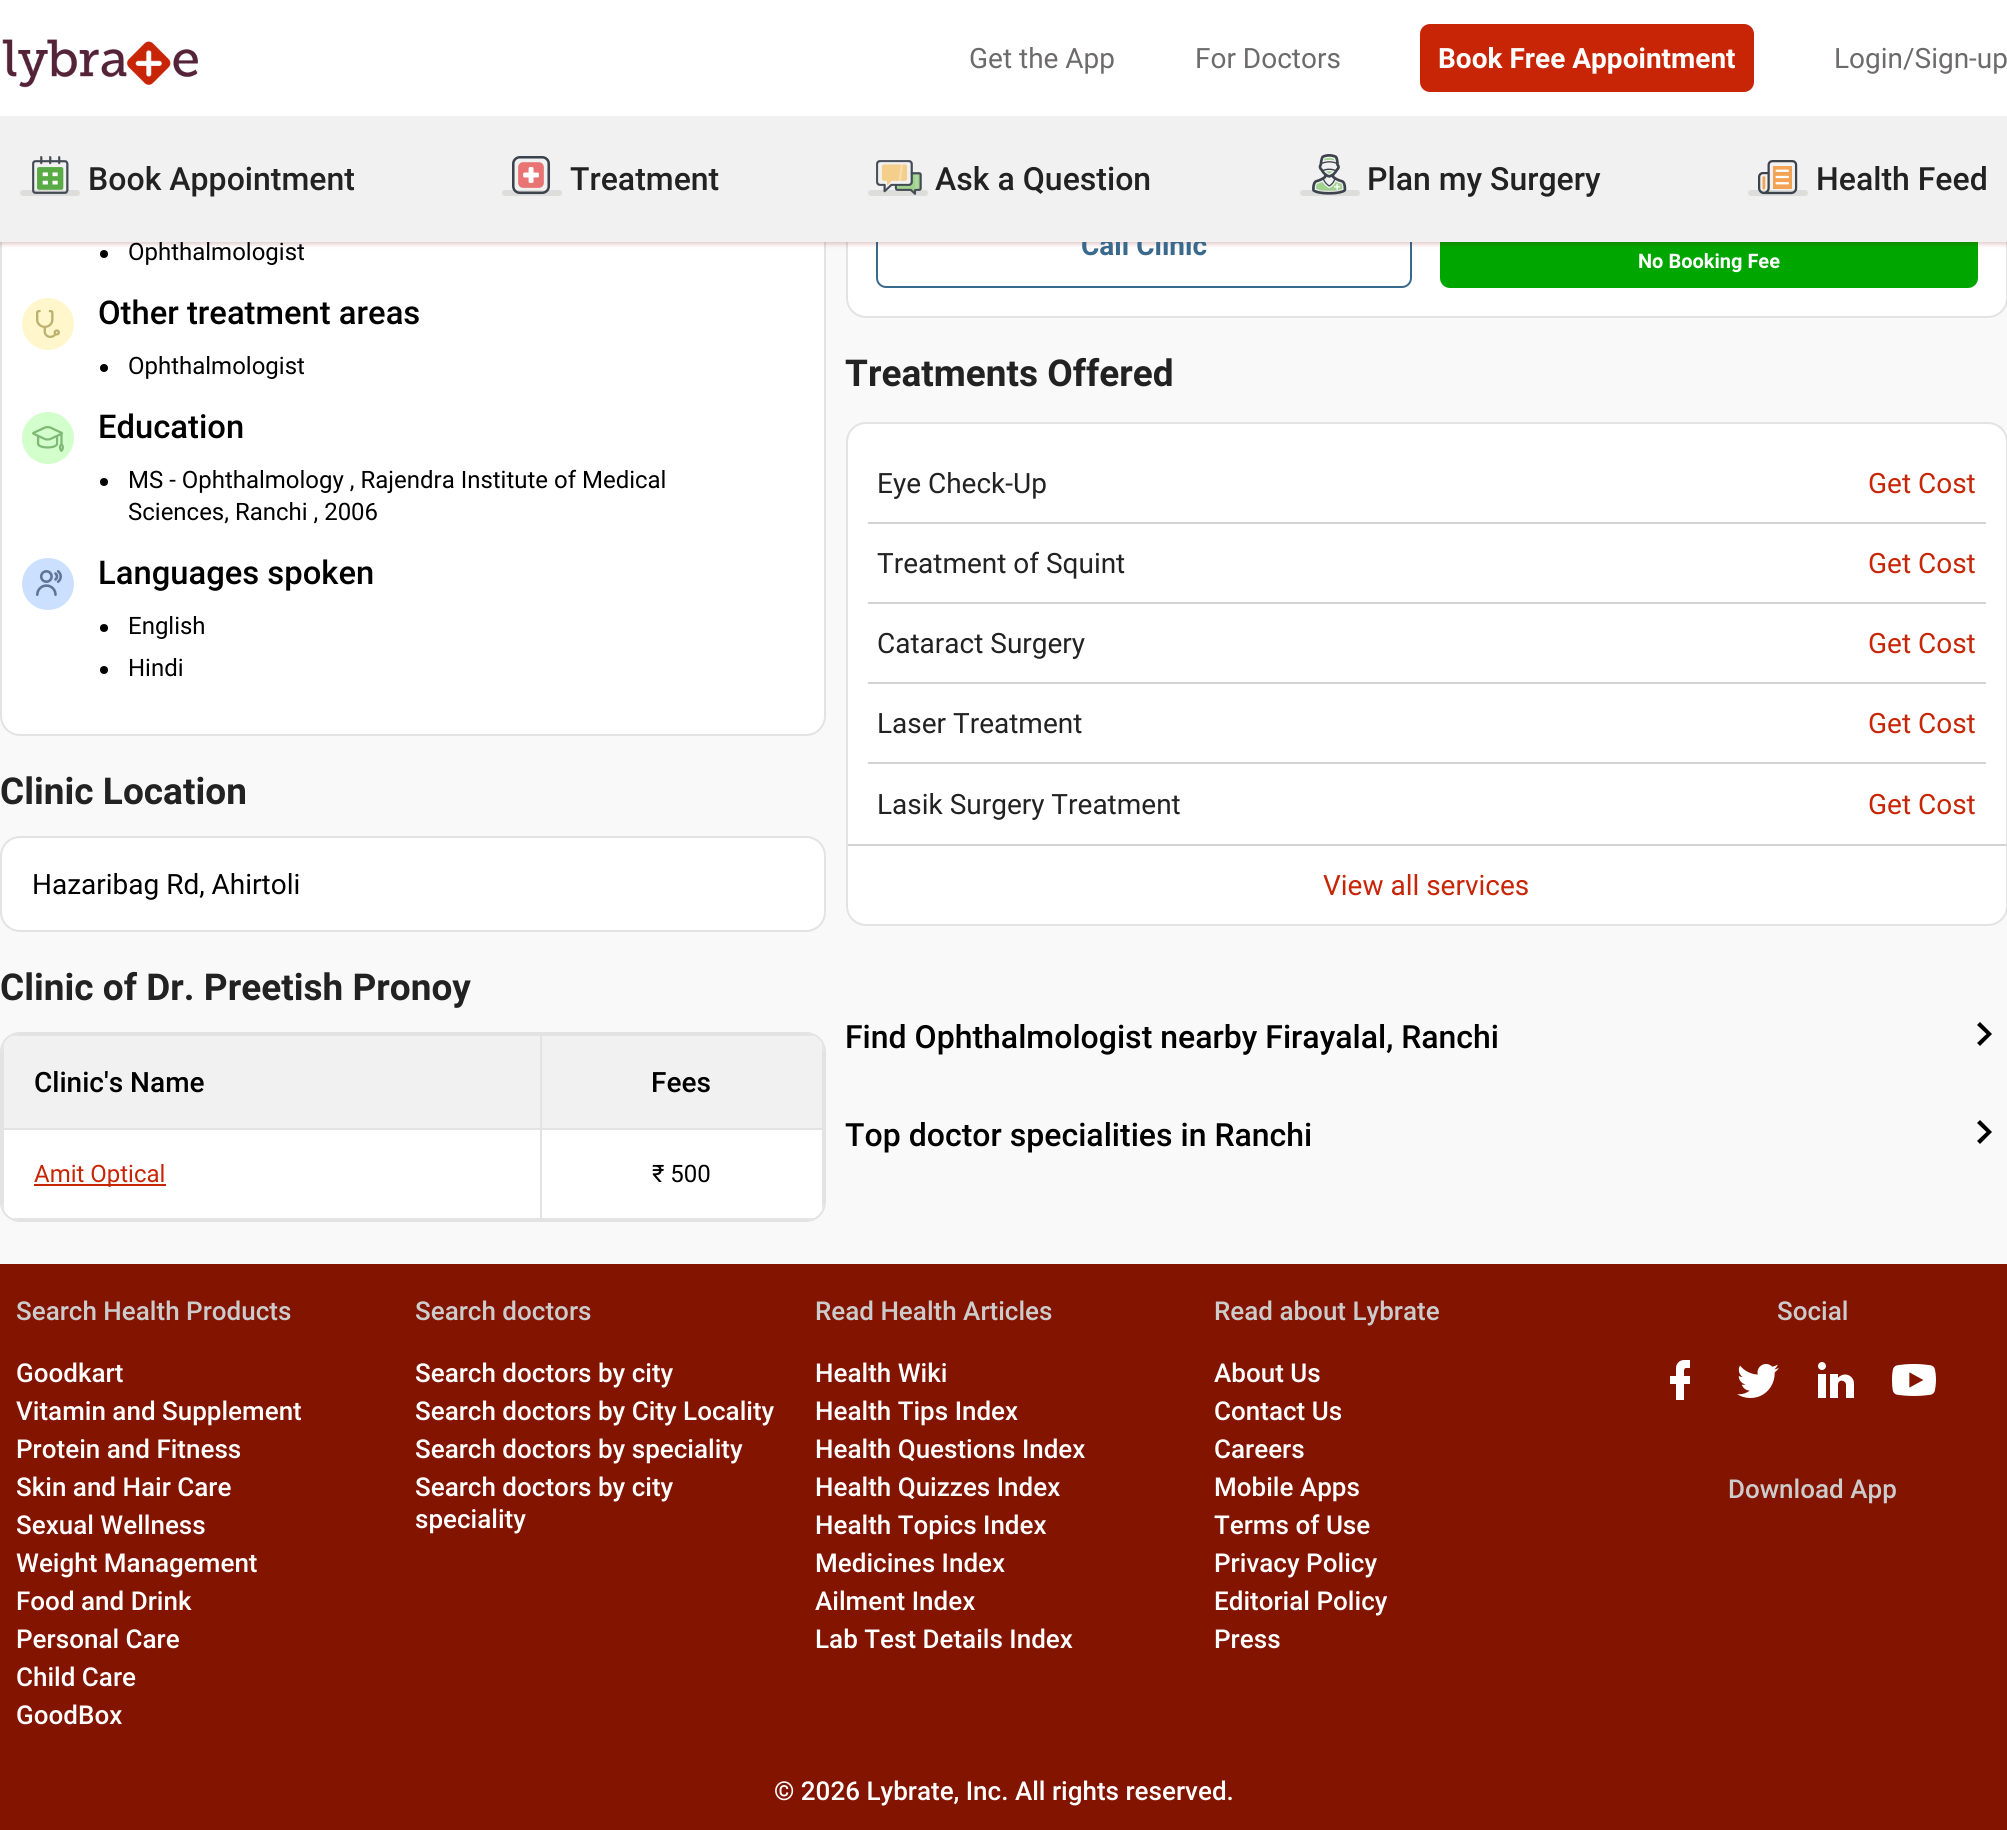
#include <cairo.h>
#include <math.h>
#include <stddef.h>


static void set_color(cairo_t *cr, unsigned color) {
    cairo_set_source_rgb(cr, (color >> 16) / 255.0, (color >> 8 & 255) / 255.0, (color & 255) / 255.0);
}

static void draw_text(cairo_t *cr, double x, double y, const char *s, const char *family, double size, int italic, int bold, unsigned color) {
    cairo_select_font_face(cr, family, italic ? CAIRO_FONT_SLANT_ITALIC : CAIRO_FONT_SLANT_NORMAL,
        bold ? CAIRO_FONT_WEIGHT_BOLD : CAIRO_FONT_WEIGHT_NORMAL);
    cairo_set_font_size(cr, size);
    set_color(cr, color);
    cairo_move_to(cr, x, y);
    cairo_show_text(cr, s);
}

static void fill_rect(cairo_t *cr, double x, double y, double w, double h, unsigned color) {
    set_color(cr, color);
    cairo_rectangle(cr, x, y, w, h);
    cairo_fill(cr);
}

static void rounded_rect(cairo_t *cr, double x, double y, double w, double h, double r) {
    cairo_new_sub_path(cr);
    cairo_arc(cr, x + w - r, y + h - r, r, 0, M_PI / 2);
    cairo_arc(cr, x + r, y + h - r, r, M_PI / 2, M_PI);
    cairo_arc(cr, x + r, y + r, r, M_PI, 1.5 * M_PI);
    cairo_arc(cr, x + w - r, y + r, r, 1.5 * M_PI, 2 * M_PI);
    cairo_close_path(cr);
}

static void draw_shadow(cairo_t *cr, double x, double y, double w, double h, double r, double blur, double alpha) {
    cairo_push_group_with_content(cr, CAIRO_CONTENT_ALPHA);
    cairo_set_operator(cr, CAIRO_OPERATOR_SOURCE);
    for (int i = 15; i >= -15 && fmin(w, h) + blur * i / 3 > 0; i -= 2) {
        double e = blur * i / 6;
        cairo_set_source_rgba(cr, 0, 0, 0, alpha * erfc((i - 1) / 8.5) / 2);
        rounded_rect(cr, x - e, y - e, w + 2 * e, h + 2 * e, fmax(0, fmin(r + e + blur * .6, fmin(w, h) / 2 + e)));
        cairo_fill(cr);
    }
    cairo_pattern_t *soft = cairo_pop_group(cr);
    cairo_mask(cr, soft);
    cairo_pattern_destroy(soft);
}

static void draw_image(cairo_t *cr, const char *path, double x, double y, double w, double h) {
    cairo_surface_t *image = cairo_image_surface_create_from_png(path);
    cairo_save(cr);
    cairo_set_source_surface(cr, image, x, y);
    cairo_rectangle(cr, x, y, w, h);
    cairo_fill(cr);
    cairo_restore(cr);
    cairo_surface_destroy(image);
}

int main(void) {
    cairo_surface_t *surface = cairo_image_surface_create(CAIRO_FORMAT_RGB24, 2007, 1830);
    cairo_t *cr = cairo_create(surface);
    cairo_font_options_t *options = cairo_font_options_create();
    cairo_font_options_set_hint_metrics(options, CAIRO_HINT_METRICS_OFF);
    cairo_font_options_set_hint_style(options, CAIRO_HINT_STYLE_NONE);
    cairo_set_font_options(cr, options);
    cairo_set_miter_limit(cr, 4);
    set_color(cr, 0xF9F9F9);
    cairo_paint(cr);
    set_color(cr, 0xFFFFFF);
    rounded_rect(cr, 1, 143, 824, 592, 19);
    cairo_fill_preserve(cr);
    set_color(cr, 0xE3E3E3);
    cairo_stroke(cr);
    set_color(cr, 0x000000);
    cairo_arc(cr, 104, 254, 4, 0, 2 * M_PI);
    cairo_fill(cr);
    set_color(cr, 0xFFFFFF);
    rounded_rect(cr, 847, -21, 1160, 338, 19);
    cairo_fill_preserve(cr);
    set_color(cr, 0xE3E3E3);
    cairo_stroke(cr);
    rounded_rect(cr, 877, 203, 534, 84, 9);
    set_color(cr, 0x3A698E);
    cairo_stroke(cr);
    set_color(cr, 0x00A600);
    rounded_rect(cr, 1441, 203, 536, 84, 9);
    cairo_fill_preserve(cr);
    cairo_stroke(cr);
    set_color(cr, 0x000000);
    draw_shadow(cr, 0, 118, 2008, 126, 0, 2, 0.12);
    set_color(cr, 0xDD0909);
    draw_shadow(cr, 0, 118, 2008, 126, 0, 3, 0.12);
    fill_rect(cr, 0, 0, 2007, 116, 0xFFFFFF);
    draw_image(cr, "assets/img1.png", 2, 39, 196, 49);
    draw_text(cr, 969, 68, "Get the App", "Roboto", 28, 0, 0, 0x6C6A6A);
    draw_text(cr, 1195, 68, "For Doctors", "Roboto", 28, 0, 0, 0x6C6A6A);
    set_color(cr, 0xC82506);
    rounded_rect(cr, 1421, 25, 332, 66, 9);
    cairo_fill_preserve(cr);
    cairo_stroke(cr);
    draw_text(cr, 1438, 68, "Book Free Appointment", "Roboto", 28, 0, 1, 0xFFFFFF);
    draw_text(cr, 1834, 68, "Login/Sign-up", "Roboto", 28, 0, 0, 0x6C6A6A);
    draw_text(cr, 1081, 255, "Call Clinic", "Roboto", 28, 0, 1, 0x3A698E);
    fill_rect(cr, 0, 116, 2007, 126, 0xF1F1F1);
    draw_image(cr, "assets/img2.png", 20, 156, 60, 40);
    draw_text(cr, 88, 190, "Book Appointment", "Roboto Medium", 32, 0, 0, 0x222222);
    draw_image(cr, "assets/img3.png", 502, 156, 60, 40);
    draw_text(cr, 570, 190, "Treatment", "Roboto Medium", 32, 0, 0, 0x222222);
    draw_image(cr, "assets/img4.png", 868, 160, 60, 36);
    draw_text(cr, 935, 190, "Ask a Question", "Roboto Medium", 32, 0, 0, 0x222222);
    draw_image(cr, "assets/img5.png", 1300, 154, 60, 42);
    draw_text(cr, 1367, 190, "Plan my Surgery", "Roboto Medium", 32, 0, 0, 0x222222);
    draw_image(cr, "assets/img6.png", 1748, 160, 60, 36);
    draw_text(cr, 1816, 190, "Health Feed", "Roboto Medium", 32, 0, 0, 0x222222);
    draw_text(cr, 128, 260, "Ophthalmologist", "Roboto", 24, 0, 0, 0x000000);
    draw_image(cr, "assets/img7.png", 22, 298, 52, 52);
    draw_text(cr, 98, 324, "Other treatment areas", "Roboto Medium", 32.75, 0, 0, 0x000000);
    cairo_new_path(cr);
    cairo_arc(cr, 104, 368, 4, 0, 2 * M_PI);
    cairo_fill(cr);
    draw_text(cr, 128, 374, "Ophthalmologist", "Roboto", 24, 0, 0, 0x000000);
    draw_image(cr, "assets/img8.png", 22, 412, 52, 52);
    draw_text(cr, 98, 438, "Education", "Roboto Medium", 32.75, 0, 0, 0x000000);
    cairo_new_path(cr);
    cairo_arc(cr, 104, 482, 4, 0, 2 * M_PI);
    cairo_fill(cr);
    draw_text(cr, 128, 488, "MS - Ophthalmology , Rajendra Institute of Medical", "Roboto", 24, 0, 0, 0x000000);
    draw_text(cr, 128, 520, "Sciences, Ranchi , 2006", "Roboto", 24, 0, 0, 0x000000);
    draw_image(cr, "assets/img9.png", 22, 558, 52, 52);
    draw_text(cr, 98, 584, "Languages spoken", "Roboto Medium", 32.75, 0, 0, 0x000000);
    cairo_new_path(cr);
    cairo_arc(cr, 104, 628, 4, 0, 2 * M_PI);
    cairo_fill(cr);
    draw_text(cr, 128, 634, "English", "Roboto", 24, 0, 0, 0x000000);
    cairo_new_path(cr);
    cairo_arc(cr, 104, 670, 4, 0, 2 * M_PI);
    cairo_fill(cr);
    draw_text(cr, 128, 676, "Hindi", "Roboto", 24, 0, 0, 0x000000);
    draw_text(cr, 0, 804, "Clinic Location", "Roboto", 37, 0, 1, 0x222222);
    set_color(cr, 0xFFFFFF);
    rounded_rect(cr, 1, 837, 824, 94, 19);
    cairo_fill_preserve(cr);
    set_color(cr, 0xE3E3E3);
    cairo_stroke(cr);
    draw_text(cr, 32, 894, "Hazaribag Rd, Ahirtoli", "Roboto", 28, 0, 0, 0x000000);
    draw_text(cr, 0, 1000, "Clinic of Dr. Preetish Pronoy", "Roboto", 37, 0, 1, 0x222222);
    set_color(cr, 0xFFFFFF);
    rounded_rect(cr, 1, 1033, 824, 188, 19);
    cairo_fill_preserve(cr);
    set_color(cr, 0xE3E3E3);
    cairo_stroke(cr);
    cairo_save(cr);
    rounded_rect(cr, 2, 1034, 822, 186, 18);
    cairo_clip(cr);
    fill_rect(cr, 4, 1034, 536, 94, 0xF1F1F1);
    fill_rect(cr, 542, 1034, 280, 94, 0xF1F1F1);
    fill_rect(cr, 540, 1034, 274, 2, 0xE3E3E3);
    cairo_restore(cr);
    fill_rect(cr, 540, 1128, 284, 2, 0xE3E3E3);
    cairo_save(cr);
    rounded_rect(cr, 2, 1034, 822, 186, 18);
    cairo_clip(cr);
    fill_rect(cr, 540, 1218, 274, 2, 0xE3E3E3);
    cairo_restore(cr);
    fill_rect(cr, 540, 1128, 2, 92, 0xE3E3E3);
    fill_rect(cr, 2, 1128, 540, 2, 0xE3E3E3);
    fill_rect(cr, 540, 1034, 2, 96, 0xE3E3E3);
    cairo_save(cr);
    rounded_rect(cr, 2, 1034, 822, 186, 18);
    cairo_clip(cr);
    fill_rect(cr, 12, 1034, 530, 2, 0xE3E3E3);
    fill_rect(cr, 2, 1128, 2, 82, 0xE3E3E3);
    fill_rect(cr, 2, 1044, 2, 86, 0xE3E3E3);
    cairo_restore(cr);
    draw_text(cr, 34, 1092, "Clinic's Name", "Roboto Medium", 28, 0, 0, 0x000000);
    cairo_save(cr);
    rounded_rect(cr, 2, 1034, 822, 186, 18);
    cairo_clip(cr);
    fill_rect(cr, 822, 1128, 2, 82, 0xE3E3E3);
    fill_rect(cr, 822, 1044, 2, 86, 0xE3E3E3);
    cairo_restore(cr);
    draw_text(cr, 651, 1092, "Fees", "Roboto Medium", 28, 0, 0, 0x000000);
    cairo_save(cr);
    rounded_rect(cr, 2, 1034, 822, 186, 18);
    cairo_clip(cr);
    fill_rect(cr, 12, 1218, 530, 2, 0xE3E3E3);
    cairo_restore(cr);
    fill_rect(cr, 34, 1184, 132, 2, 0xC82506);
    draw_text(cr, 34, 1182, "Amit Optical", "Roboto", 24, 0, 0, 0xC82506);
    draw_text(cr, 652, 1182, "₹ 500", "Roboto", 24, 0, 0, 0x000000);
    draw_text(cr, 1638, 268, "No Booking Fee", "Roboto", 20, 0, 1, 0xFFFFFF);
    draw_text(cr, 845, 386, "Treatments Offered", "Roboto", 37, 0, 1, 0x222222);
    set_color(cr, 0xFFFFFF);
    rounded_rect(cr, 847, 423, 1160, 502, 19);
    cairo_fill_preserve(cr);
    set_color(cr, 0xE3E3E3);
    cairo_stroke(cr);
    fill_rect(cr, 868, 522, 1118, 2, 0xD3D3D3);
    draw_text(cr, 877, 493, "Eye Check-Up", "Roboto", 28, 0, 0, 0x222222);
    draw_text(cr, 1868, 493, "Get Cost", "Roboto", 28, 0, 0, 0xC82506);
    fill_rect(cr, 868, 602, 1118, 2, 0xD3D3D3);
    draw_text(cr, 877, 573, "Treatment of Squint", "Roboto", 28, 0, 0, 0x222222);
    draw_text(cr, 1868, 573, "Get Cost", "Roboto", 28, 0, 0, 0xC82506);
    fill_rect(cr, 868, 682, 1118, 2, 0xD3D3D3);
    draw_text(cr, 877, 653, "Cataract Surgery", "Roboto", 28, 0, 0, 0x222222);
    draw_text(cr, 1868, 653, "Get Cost", "Roboto", 28, 0, 0, 0xC82506);
    fill_rect(cr, 868, 762, 1118, 2, 0xD3D3D3);
    draw_text(cr, 877, 733, "Laser Treatment", "Roboto", 28, 0, 0, 0x222222);
    draw_text(cr, 1868, 733, "Get Cost", "Roboto", 28, 0, 0, 0xC82506);
    draw_text(cr, 877, 814, "Lasik Surgery Treatment", "Roboto", 28, 0, 0, 0x222222);
    draw_text(cr, 1868, 814, "Get Cost", "Roboto", 28, 0, 0, 0xC82506);
    fill_rect(cr, 848, 844, 1158, 2, 0xD3D3D3);
    draw_text(cr, 1323, 895, "View all services", "Roboto", 28, 0, 0, 0xC82506);
    draw_text(cr, 845, 1048, "Find Ophthalmologist nearby Firayalal, Ranchi", "Roboto Medium", 32, 0, 0, 0x000000);
    cairo_new_path(cr);
    cairo_move_to(cr, 1977, 1043);
    cairo_line_to(cr, 1986.5, 1034);
    cairo_line_to(cr, 1977, 1025);
    cairo_line_to(cr, 1980, 1022);
    cairo_line_to(cr, 1992, 1034);
    cairo_line_to(cr, 1980, 1046);
    cairo_close_path(cr);
    cairo_fill(cr);
    draw_text(cr, 845, 1146, "Top doctor specialities in Ranchi", "Roboto Medium", 32, 0, 0, 0x000000);
    cairo_new_path(cr);
    cairo_move_to(cr, 1977, 1141);
    cairo_line_to(cr, 1986.5, 1132);
    cairo_line_to(cr, 1977, 1123);
    cairo_line_to(cr, 1980, 1120);
    cairo_line_to(cr, 1992, 1132);
    cairo_line_to(cr, 1980, 1144);
    cairo_close_path(cr);
    cairo_fill(cr);
    fill_rect(cr, 0, 1264, 2007, 566, 0x831500);
    draw_text(cr, 16, 1320, "Search Health Products", "Roboto Medium", 26, 0, 0, 0xCCCCCC);
    draw_text(cr, 16, 1382, "Goodkart", "Roboto Medium", 26, 0, 0, 0xFFFFFF);
    draw_text(cr, 16, 1420, "Vitamin and Supplement", "Roboto Medium", 26, 0, 0, 0xFFFFFF);
    draw_text(cr, 16, 1458, "Protein and Fitness", "Roboto Medium", 26, 0, 0, 0xFFFFFF);
    draw_text(cr, 16, 1496, "Skin and Hair Care", "Roboto Medium", 26, 0, 0, 0xFFFFFF);
    draw_text(cr, 16, 1534, "Sexual Wellness", "Roboto Medium", 26, 0, 0, 0xFFFFFF);
    draw_text(cr, 16, 1572, "Weight Management", "Roboto Medium", 26, 0, 0, 0xFFFFFF);
    draw_text(cr, 16, 1610, "Food and Drink", "Roboto Medium", 26, 0, 0, 0xFFFFFF);
    draw_text(cr, 16, 1648, "Personal Care", "Roboto Medium", 26, 0, 0, 0xFFFFFF);
    draw_text(cr, 16, 1686, "Child Care", "Roboto Medium", 26, 0, 0, 0xFFFFFF);
    draw_text(cr, 16, 1724, "GoodBox", "Roboto Medium", 26, 0, 0, 0xFFFFFF);
    draw_text(cr, 415, 1320, "Search doctors", "Roboto Medium", 26, 0, 0, 0xCCCCCC);
    draw_text(cr, 415, 1382, "Search doctors by city", "Roboto Medium", 26, 0, 0, 0xFFFFFF);
    draw_text(cr, 415, 1420, "Search doctors by City Locality", "Roboto Medium", 26, 0, 0, 0xFFFFFF);
    draw_text(cr, 415, 1458, "Search doctors by speciality", "Roboto Medium", 26, 0, 0, 0xFFFFFF);
    draw_text(cr, 415, 1496, "Search doctors by city", "Roboto Medium", 26, 0, 0, 0xFFFFFF);
    draw_text(cr, 415, 1528, "speciality", "Roboto Medium", 26, 0, 0, 0xFFFFFF);
    draw_text(cr, 815, 1320, "Read Health Articles", "Roboto Medium", 26, 0, 0, 0xCCCCCC);
    draw_text(cr, 815, 1382, "Health Wiki", "Roboto Medium", 26, 0, 0, 0xFFFFFF);
    draw_text(cr, 815, 1420, "Health Tips Index", "Roboto Medium", 26, 0, 0, 0xFFFFFF);
    draw_text(cr, 815, 1458, "Health Questions Index", "Roboto Medium", 26, 0, 0, 0xFFFFFF);
    draw_text(cr, 815, 1496, "Health Quizzes Index", "Roboto Medium", 26, 0, 0, 0xFFFFFF);
    draw_text(cr, 815, 1534, "Health Topics Index", "Roboto Medium", 26, 0, 0, 0xFFFFFF);
    draw_text(cr, 815, 1572, "Medicines Index", "Roboto Medium", 26, 0, 0, 0xFFFFFF);
    draw_text(cr, 815, 1610, "Ailment Index", "Roboto Medium", 26, 0, 0, 0xFFFFFF);
    draw_text(cr, 815, 1648, "Lab Test Details Index", "Roboto Medium", 26, 0, 0, 0xFFFFFF);
    draw_text(cr, 1214, 1320, "Read about Lybrate", "Roboto Medium", 26, 0, 0, 0xCCCCCC);
    draw_text(cr, 1214, 1382, "About Us", "Roboto Medium", 26, 0, 0, 0xFFFFFF);
    draw_text(cr, 1214, 1420, "Contact Us", "Roboto Medium", 26, 0, 0, 0xFFFFFF);
    draw_text(cr, 1214, 1458, "Careers", "Roboto Medium", 26, 0, 0, 0xFFFFFF);
    draw_text(cr, 1214, 1496, "Mobile Apps", "Roboto Medium", 26, 0, 0, 0xFFFFFF);
    draw_text(cr, 1214, 1534, "Terms of Use", "Roboto Medium", 26, 0, 0, 0xFFFFFF);
    draw_text(cr, 1214, 1572, "Privacy Policy", "Roboto Medium", 26, 0, 0, 0xFFFFFF);
    draw_text(cr, 1214, 1610, "Editorial Policy", "Roboto Medium", 26, 0, 0, 0xFFFFFF);
    draw_text(cr, 1214, 1648, "Press", "Roboto Medium", 26, 0, 0, 0xFFFFFF);
    draw_text(cr, 1777, 1320, "Social", "Roboto Medium", 26, 0, 0, 0xCCCCCC);
    draw_image(cr, "assets/img10.png", 1670, 1360, 20, 40);
    draw_image(cr, "assets/img11.png", 1737, 1364, 42, 34);
    draw_image(cr, "assets/img12.png", 1818, 1362, 36, 36);
    draw_image(cr, "assets/img13.png", 1892, 1364, 44, 32);
    draw_text(cr, 1728, 1498, "Download App", "Roboto Medium", 26, 0, 0, 0xCCCCCC);
    draw_text(cr, 774, 1800, "© 2026 Lybrate, Inc. All rights reserved.", "Roboto Medium", 26, 0, 0, 0xFFFFFF);
    cairo_surface_write_to_png(surface, "output.png");
    cairo_font_options_destroy(options);
    cairo_destroy(cr);
    cairo_surface_destroy(surface);
    return 0;
}
